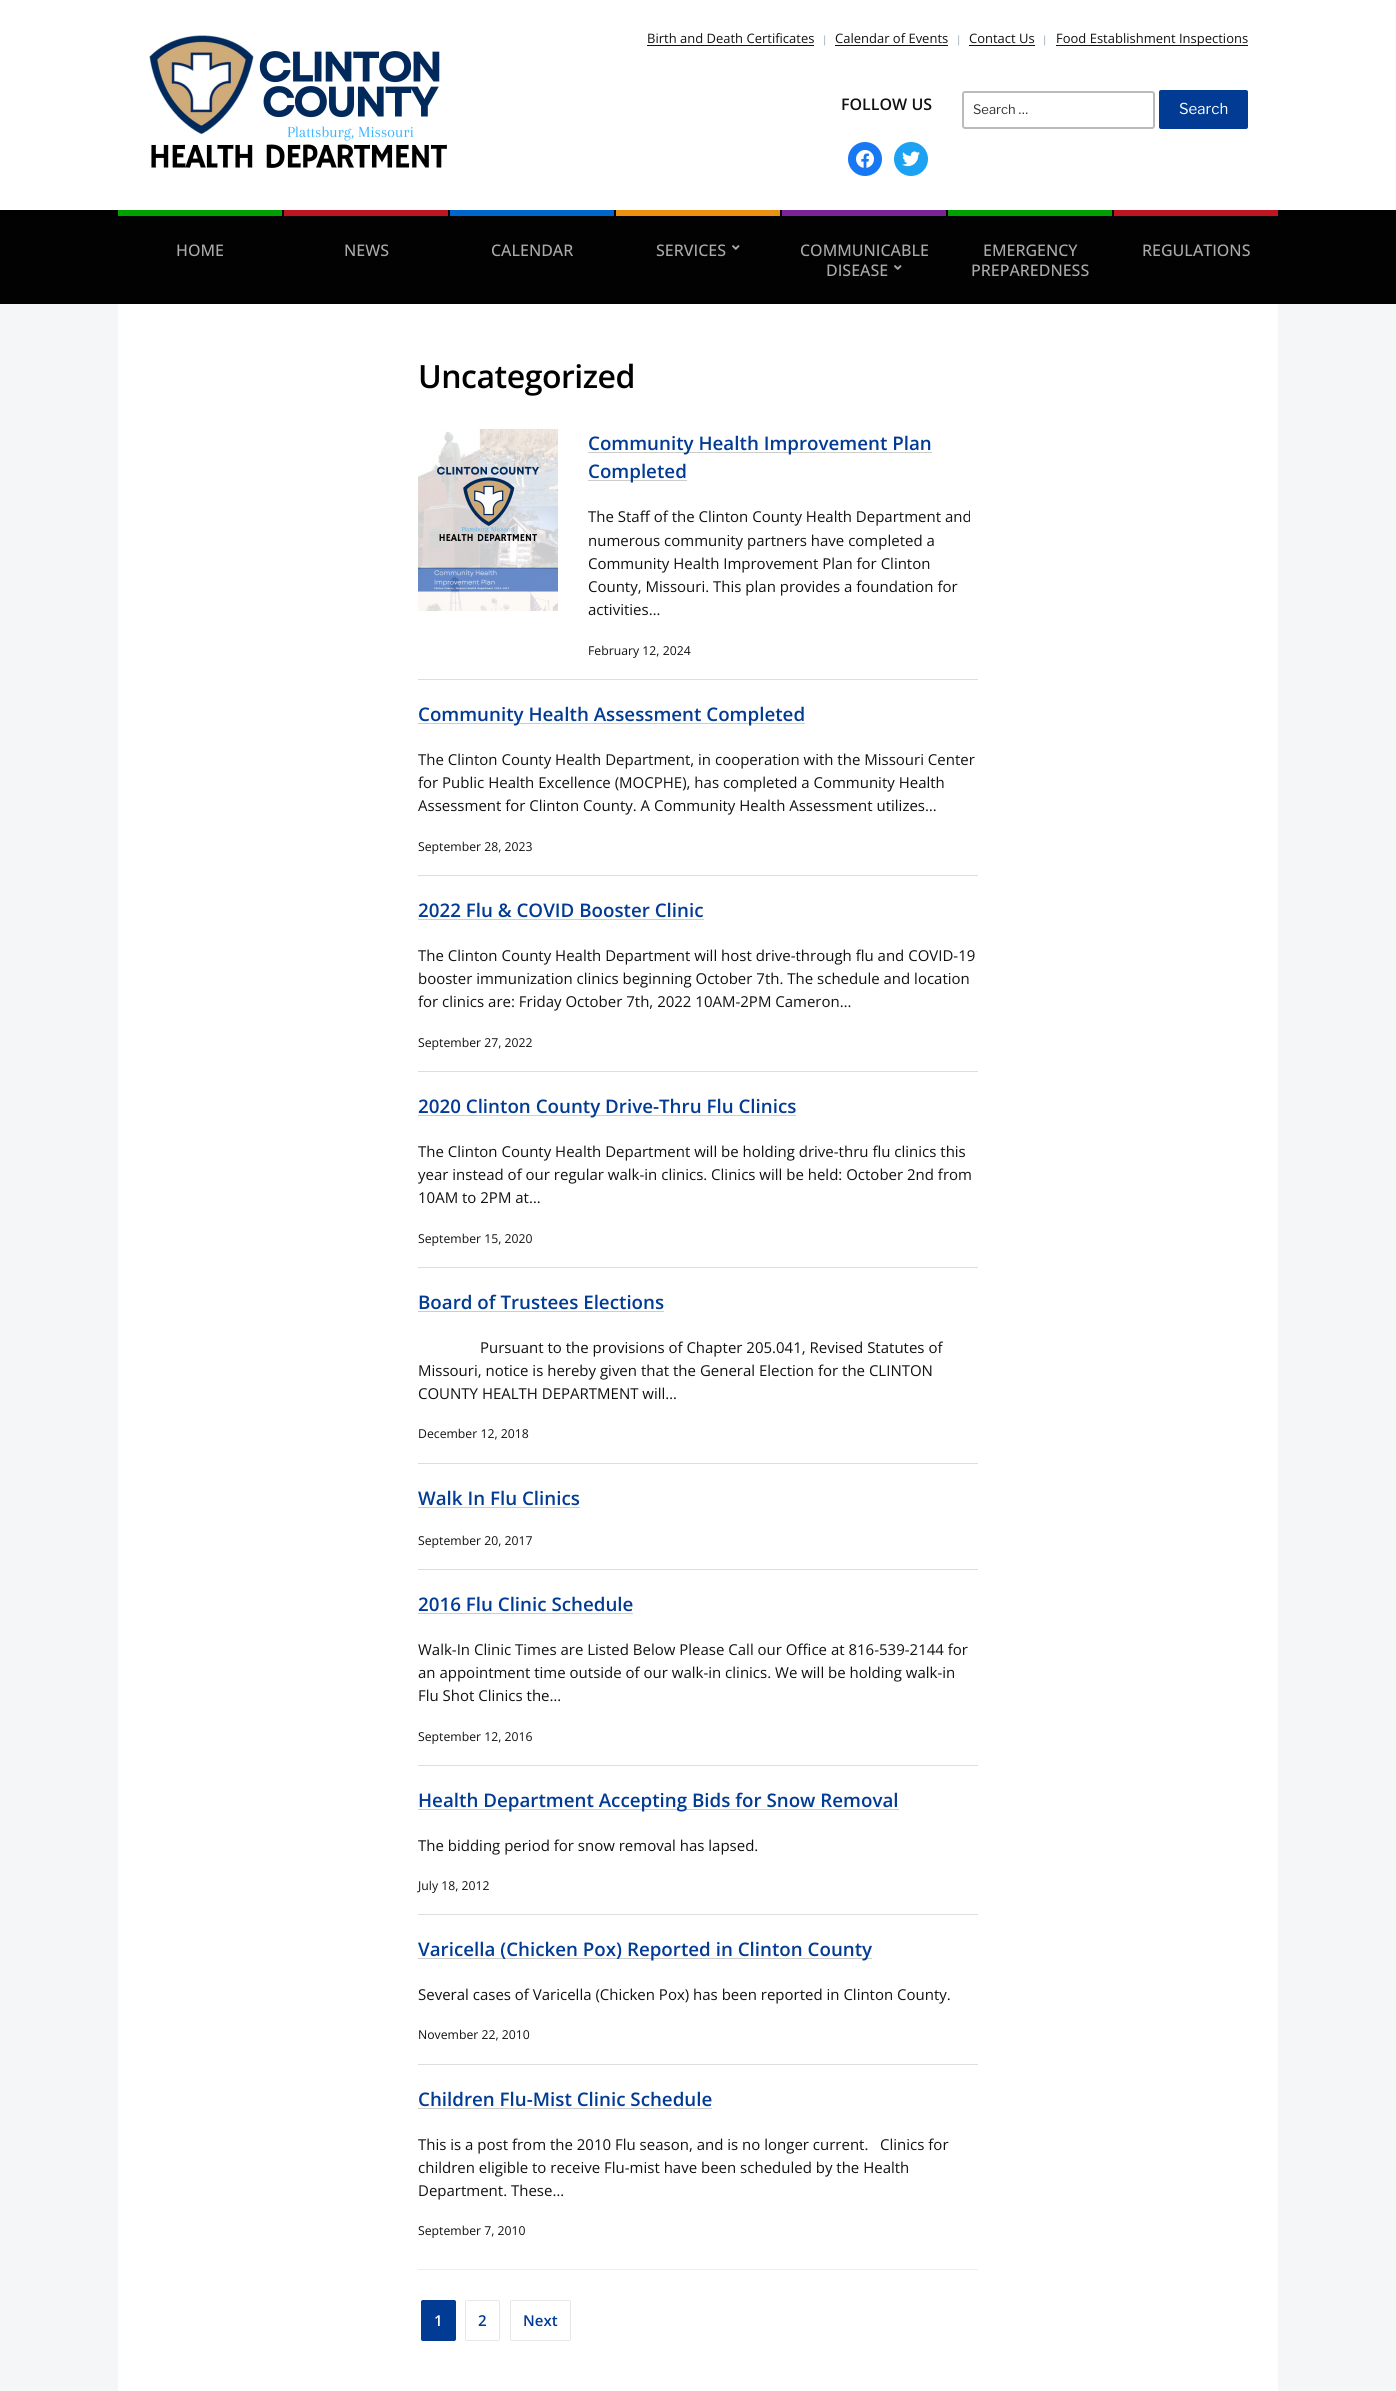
#include <cairo.h>
#include <math.h>
#include <stddef.h>


static void set_color(cairo_t *cr, unsigned color) {
    cairo_set_source_rgb(cr, (color >> 16) / 255.0, (color >> 8 & 255) / 255.0, (color & 255) / 255.0);
}

static void draw_text(cairo_t *cr, double x, double y, const char *s, const char *family, double size, int italic, int bold, unsigned color) {
    cairo_select_font_face(cr, family, italic ? CAIRO_FONT_SLANT_ITALIC : CAIRO_FONT_SLANT_NORMAL,
        bold ? CAIRO_FONT_WEIGHT_BOLD : CAIRO_FONT_WEIGHT_NORMAL);
    cairo_set_font_size(cr, size);
    set_color(cr, color);
    cairo_move_to(cr, x, y);
    cairo_show_text(cr, s);
}

static void draw_spaced(cairo_t *cr, double x, double y, const char *s, double letter, double word) {
    cairo_move_to(cr, x, y);
    while (*s) {
        char ch[5] = {0};
        int n = 0;
        do ch[n++] = *s++; while ((*s & 0xC0) == 0x80);
        cairo_show_text(cr, ch);
        cairo_rel_move_to(cr, letter + word * (*ch == ' '), 0);
    }
}

static void fill_rect(cairo_t *cr, double x, double y, double w, double h, unsigned color) {
    set_color(cr, color);
    cairo_rectangle(cr, x, y, w, h);
    cairo_fill(cr);
}

static void rounded_rect(cairo_t *cr, double x, double y, double w, double h, double r) {
    cairo_new_sub_path(cr);
    cairo_arc(cr, x + w - r, y + h - r, r, 0, M_PI / 2);
    cairo_arc(cr, x + r, y + h - r, r, M_PI / 2, M_PI);
    cairo_arc(cr, x + r, y + r, r, M_PI, 1.5 * M_PI);
    cairo_arc(cr, x + w - r, y + r, r, 1.5 * M_PI, 2 * M_PI);
    cairo_close_path(cr);
}

static void draw_image(cairo_t *cr, const char *path, double x, double y, double w, double h) {
    cairo_surface_t *image = cairo_image_surface_create_from_png(path);
    cairo_save(cr);
    cairo_set_source_surface(cr, image, x, y);
    cairo_rectangle(cr, x, y, w, h);
    cairo_fill(cr);
    cairo_restore(cr);
    cairo_surface_destroy(image);
}

int main(void) {
    cairo_surface_t *surface = cairo_image_surface_create(CAIRO_FORMAT_RGB24, 1396, 2391);
    cairo_t *cr = cairo_create(surface);
    cairo_font_options_t *options = cairo_font_options_create();
    cairo_font_options_set_hint_metrics(options, CAIRO_HINT_METRICS_OFF);
    cairo_font_options_set_hint_style(options, CAIRO_HINT_STYLE_NONE);
    cairo_set_font_options(cr, options);
    cairo_set_miter_limit(cr, 4);
    set_color(cr, 0xF4F6F8);
    cairo_paint(cr);
    fill_rect(cr, 0, 0, 1396, 210, 0xFFFFFF);
    draw_image(cr, "assets/img1.png", 149, 35, 298, 133);
    draw_text(cr, 647, 43, "Birth and Death Certificates", "Open Sans", 13, 0, 0, 0x111111);
    fill_rect(cr, 647, 45, 167, 1, 0x111111);
    draw_text(cr, 822, 43, "|", "Open Sans", 10, 0, 0, 0x8898AF);
    draw_text(cr, 835, 43, "Calendar of Events", "Open Sans", 13, 0, 0, 0x111111);
    fill_rect(cr, 835, 45, 113, 1, 0x111111);
    draw_text(cr, 956, 43, "|", "Open Sans", 10, 0, 0, 0x8898AF);
    draw_text(cr, 969, 43, "Contact Us", "Open Sans", 13, 0, 0, 0x111111);
    fill_rect(cr, 969, 45, 66, 1, 0x111111);
    draw_text(cr, 1042, 43, "|", "Open Sans", 10, 0, 0, 0x8898AF);
    fill_rect(cr, 1056, 45, 192, 1, 0x111111);
    draw_text(cr, 1056, 43, "Food Establishment Inspections", "Open Sans", 13, 0, 0, 0x111111);
    draw_text(cr, 841, 110, "FOLLOW US", "Open Sans SemiBold", 16, 0, 0, 0x111111);
    set_color(cr, 0x1877F2);
    cairo_new_path(cr);
    cairo_arc(cr, 865, 159, 17, 0, 2 * M_PI);
    cairo_fill(cr);
    draw_image(cr, "assets/img2.png", 856, 150, 18, 18);
    set_color(cr, 0x1DA1F2);
    cairo_arc(cr, 911, 159, 17, 0, 2 * M_PI);
    cairo_fill(cr);
    draw_image(cr, "assets/img3.png", 902, 151, 18, 16);
    rounded_rect(cr, 963, 92, 191, 36, 2);
    set_color(cr, 0xBBBBBB);
    cairo_stroke(cr);
    draw_text(cr, 973, 114, "Search …", "Libre Franklin", 13, 0, 0, 0x333333);
    set_color(cr, 0x013B93);
    rounded_rect(cr, 1159, 90, 89, 39, 2);
    cairo_fill(cr);
    draw_text(cr, 1179, 114, "Search", "Libre Franklin", 15, 0, 0, 0xFFFFFF);
    fill_rect(cr, 0, 210, 1396, 94, 0x020202);
    fill_rect(cr, 118, 210, 164, 6, 0x00A000);
    draw_text(cr, 176, 256, "HOME", "Open Sans Medium", 16, 0, 0, 0xAAAAAA);
    fill_rect(cr, 284, 210, 164, 6, 0xBF1522);
    draw_text(cr, 344, 256, "NEWS", "Open Sans Medium", 16, 0, 0, 0xAAAAAA);
    fill_rect(cr, 450, 210, 164, 6, 0x0066CC);
    draw_text(cr, 491, 256, "CALENDAR", "Open Sans Medium", 16, 0, 0, 0xAAAAAA);
    fill_rect(cr, 616, 210, 164, 6, 0xEC900F);
    draw_text(cr, 656, 256, "SERVICES", "Open Sans Medium", 16, 0, 0, 0xAAAAAA);
    draw_image(cr, "assets/img4.png", 732, 245, 8, 5);
    fill_rect(cr, 782, 210, 164, 6, 0x7B2398);
    draw_text(cr, 800, 256, "COMMUNICABLE", "Open Sans Medium", 16, 0, 0, 0xAAAAAA);
    draw_text(cr, 826, 276, "DISEASE", "Open Sans Medium", 16, 0, 0, 0xAAAAAA);
    draw_image(cr, "assets/img4.png", 894, 265, 8, 5);
    fill_rect(cr, 948, 210, 164, 6, 0x00A000);
    draw_text(cr, 983, 256, "EMERGENCY", "Open Sans Medium", 16, 0, 0, 0xAAAAAA);
    draw_text(cr, 971, 276, "PREPAREDNESS", "Open Sans Medium", 16, 0, 0, 0xAAAAAA);
    fill_rect(cr, 1114, 210, 164, 6, 0xBF1522);
    draw_text(cr, 1142, 256, "REGULATIONS", "Open Sans Medium", 16, 0, 0, 0xAAAAAA);
    fill_rect(cr, 118, 304, 1160, 2087, 0xFFFFFF);
    cairo_select_font_face(cr, "Open Sans SemiBold", CAIRO_FONT_SLANT_NORMAL, CAIRO_FONT_WEIGHT_NORMAL);
    cairo_set_font_size(cr, 32);
    set_color(cr, 0x000000);
    draw_spaced(cr, 418, 388, "Uncategorized", -0.5, 0);
    draw_image(cr, "assets/img5.png", 418, 429, 140, 182);
    fill_rect(cr, 588, 452, 344, 1, 0xCCCCCC);
    draw_text(cr, 588, 450, "Community Health Improvement Plan", "Open Sans SemiBold", 18.75, 0, 0, 0x013B93);
    fill_rect(cr, 588, 480, 99, 1, 0xCCCCCC);
    draw_text(cr, 588, 478, "Completed", "Open Sans SemiBold", 18.75, 0, 0, 0x013B93);
    draw_text(cr, 588, 522, "The Staff of the Clinton County Health Department and", "Open Sans", 15, 0, 0, 0x111111);
    draw_text(cr, 588, 546, "numerous community partners have completed a", "Open Sans", 15, 0, 0, 0x111111);
    draw_text(cr, 588, 569, "Community Health Improvement Plan for Clinton", "Open Sans", 15, 0, 0, 0x111111);
    draw_text(cr, 588, 592, "County, Missouri. This plan provides a foundation for", "Open Sans", 15, 0, 0, 0x111111);
    draw_text(cr, 588, 615, "activities…", "Open Sans", 15, 0, 0, 0x111111);
    draw_text(cr, 588, 655, "February 12, 2024", "Open Sans", 12.25, 0, 0, 0x111111);
    fill_rect(cr, 418, 679, 560, 1, 0xDDDDDD);
    fill_rect(cr, 418, 723, 387, 1, 0xCCCCCC);
    draw_text(cr, 418, 721, "Community Health Assessment Completed", "Open Sans SemiBold", 18.75, 0, 0, 0x013B93);
    draw_text(cr, 418, 765, "The Clinton County Health Department, in cooperation with the Missouri Center", "Open Sans", 15, 0, 0, 0x111111);
    draw_text(cr, 418, 788, "for Public Health Excellence (MOCPHE), has completed a Community Health", "Open Sans", 15, 0, 0, 0x111111);
    draw_text(cr, 418, 811, "Assessment for Clinton County. A Community Health Assessment utilizes…", "Open Sans", 15, 0, 0, 0x111111);
    draw_text(cr, 418, 851, "September 28, 2023", "Open Sans", 12.25, 0, 0, 0x111111);
    fill_rect(cr, 418, 875, 560, 1, 0xDDDDDD);
    draw_text(cr, 418, 917, "2022 Flu & COVID Booster Clinic", "Open Sans SemiBold", 18.75, 0, 0, 0x013B93);
    fill_rect(cr, 418, 919, 286, 1, 0xCCCCCC);
    draw_text(cr, 418, 961, "The Clinton County Health Department will host drive-through flu and COVID-19", "Open Sans", 15, 0, 0, 0x111111);
    draw_text(cr, 418, 984, "booster immunization clinics beginning October 7th. The schedule and location", "Open Sans", 15, 0, 0, 0x111111);
    draw_text(cr, 418, 1007, "for clinics are: Friday October 7th, 2022 10AM-2PM Cameron…", "Open Sans", 15, 0, 0, 0x111111);
    draw_text(cr, 418, 1047, "September 27, 2022", "Open Sans", 12.25, 0, 0, 0x111111);
    fill_rect(cr, 418, 1071, 560, 1, 0xDDDDDD);
    fill_rect(cr, 418, 1115, 378, 1, 0xCCCCCC);
    draw_text(cr, 418, 1113, "2020 Clinton County Drive-Thru Flu Clinics", "Open Sans SemiBold", 18.75, 0, 0, 0x013B93);
    draw_text(cr, 418, 1157, "The Clinton County Health Department will be holding drive-thru flu clinics this", "Open Sans", 15, 0, 0, 0x111111);
    draw_text(cr, 418, 1180, "year instead of our regular walk-in clinics. Clinics will be held: October 2nd from", "Open Sans", 15, 0, 0, 0x111111);
    draw_text(cr, 418, 1203, "10AM to 2PM at…", "Open Sans", 15, 0, 0, 0x111111);
    draw_text(cr, 418, 1243, "September 15, 2020", "Open Sans", 12.25, 0, 0, 0x111111);
    fill_rect(cr, 418, 1267, 560, 1, 0xDDDDDD);
    draw_text(cr, 418, 1309, "Board of Trustees Elections", "Open Sans SemiBold", 18.75, 0, 0, 0x013B93);
    fill_rect(cr, 418, 1311, 246, 1, 0xCCCCCC);
    draw_text(cr, 480, 1353, "Pursuant to the provisions of Chapter 205.041, Revised Statutes of", "Open Sans", 15, 0, 0, 0x111111);
    draw_text(cr, 418, 1376, "Missouri, notice is hereby given that the General Election for the CLINTON", "Open Sans", 15, 0, 0, 0x111111);
    draw_text(cr, 418, 1399, "COUNTY HEALTH DEPARTMENT will…", "Open Sans", 15, 0, 0, 0x111111);
    draw_text(cr, 418, 1438, "December 12, 2018", "Open Sans", 12.25, 0, 0, 0x111111);
    fill_rect(cr, 418, 1463, 560, 1, 0xDDDDDD);
    draw_text(cr, 418, 1505, "Walk In Flu Clinics", "Open Sans SemiBold", 18.75, 0, 0, 0x013B93);
    fill_rect(cr, 418, 1507, 162, 1, 0xCCCCCC);
    draw_text(cr, 418, 1545, "September 20, 2017", "Open Sans", 12.25, 0, 0, 0x111111);
    fill_rect(cr, 418, 1569, 560, 1, 0xDDDDDD);
    draw_text(cr, 418, 1611, "2016 Flu Clinic Schedule", "Open Sans SemiBold", 18.75, 0, 0, 0x013B93);
    fill_rect(cr, 418, 1613, 215, 1, 0xCCCCCC);
    draw_text(cr, 418, 1655, "Walk-In Clinic Times are Listed Below Please Call our Office at 816-539-2144 for", "Open Sans", 15, 0, 0, 0x111111);
    draw_text(cr, 418, 1678, "an appointment time outside of our walk-in clinics. We will be holding walk-in", "Open Sans", 15, 0, 0, 0x111111);
    draw_text(cr, 418, 1701, "Flu Shot Clinics the…", "Open Sans", 15, 0, 0, 0x111111);
    draw_text(cr, 418, 1741, "September 12, 2016", "Open Sans", 12.25, 0, 0, 0x111111);
    fill_rect(cr, 418, 1765, 560, 1, 0xDDDDDD);
    fill_rect(cr, 418, 1809, 481, 1, 0xCCCCCC);
    draw_text(cr, 418, 1807, "Health Department Accepting Bids for Snow Removal", "Open Sans SemiBold", 18.75, 0, 0, 0x013B93);
    draw_text(cr, 418, 1851, "The bidding period for snow removal has lapsed.", "Open Sans", 15, 0, 0, 0x111111);
    draw_text(cr, 418, 1890, "July 18, 2012", "Open Sans", 12.25, 0, 0, 0x111111);
    fill_rect(cr, 418, 1914, 560, 1, 0xDDDDDD);
    fill_rect(cr, 418, 1958, 454, 1, 0xCCCCCC);
    draw_text(cr, 418, 1956, "Varicella (Chicken Pox) Reported in Clinton County", "Open Sans SemiBold", 18.75, 0, 0, 0x013B93);
    draw_text(cr, 418, 2000, "Several cases of Varicella (Chicken Pox) has been reported in Clinton County.", "Open Sans", 15, 0, 0, 0x111111);
    draw_text(cr, 418, 2039, "November 22, 2010", "Open Sans", 12.25, 0, 0, 0x111111);
    fill_rect(cr, 418, 2064, 560, 1, 0xDDDDDD);
    draw_text(cr, 418, 2106, "Children Flu-Mist Clinic Schedule", "Open Sans SemiBold", 18.75, 0, 0, 0x013B93);
    fill_rect(cr, 418, 2108, 294, 1, 0xCCCCCC);
    draw_text(cr, 418, 2150, "This is a post from the 2010 Flu season, and is no longer current.   Clinics for", "Open Sans", 15, 0, 0, 0x111111);
    draw_text(cr, 418, 2173, "children eligible to receive Flu-mist have been scheduled by the Health", "Open Sans", 15, 0, 0, 0x111111);
    draw_text(cr, 418, 2196, "Department. These…", "Open Sans", 15, 0, 0, 0x111111);
    draw_text(cr, 418, 2235, "September 7, 2010", "Open Sans", 12.25, 0, 0, 0x111111);
    fill_rect(cr, 418, 2269, 560, 1, 0xEEEEEE);
    set_color(cr, 0x013B93);
    rounded_rect(cr, 421.5, 2300.5, 34, 40, 1.5);
    cairo_fill_preserve(cr);
    cairo_set_line_width(cr, 1);
    cairo_stroke(cr);
    draw_text(cr, 434, 2326, "1", "Open Sans SemiBold", 15, 0, 0, 0xFFFFFF);
    rounded_rect(cr, 465.5, 2300.5, 34, 40, 1.5);
    set_color(cr, 0xE5E8EB);
    cairo_stroke(cr);
    draw_text(cr, 478, 2326, "2", "Open Sans SemiBold", 15, 0, 0, 0x013B93);
    rounded_rect(cr, 510.5, 2300.5, 60, 40, 1.5);
    set_color(cr, 0xE5E8EB);
    cairo_stroke(cr);
    draw_text(cr, 523, 2326, "Next", "Open Sans SemiBold", 15, 0, 0, 0x013B93);
    cairo_surface_write_to_png(surface, "output.png");
    cairo_font_options_destroy(options);
    cairo_destroy(cr);
    cairo_surface_destroy(surface);
    return 0;
}
